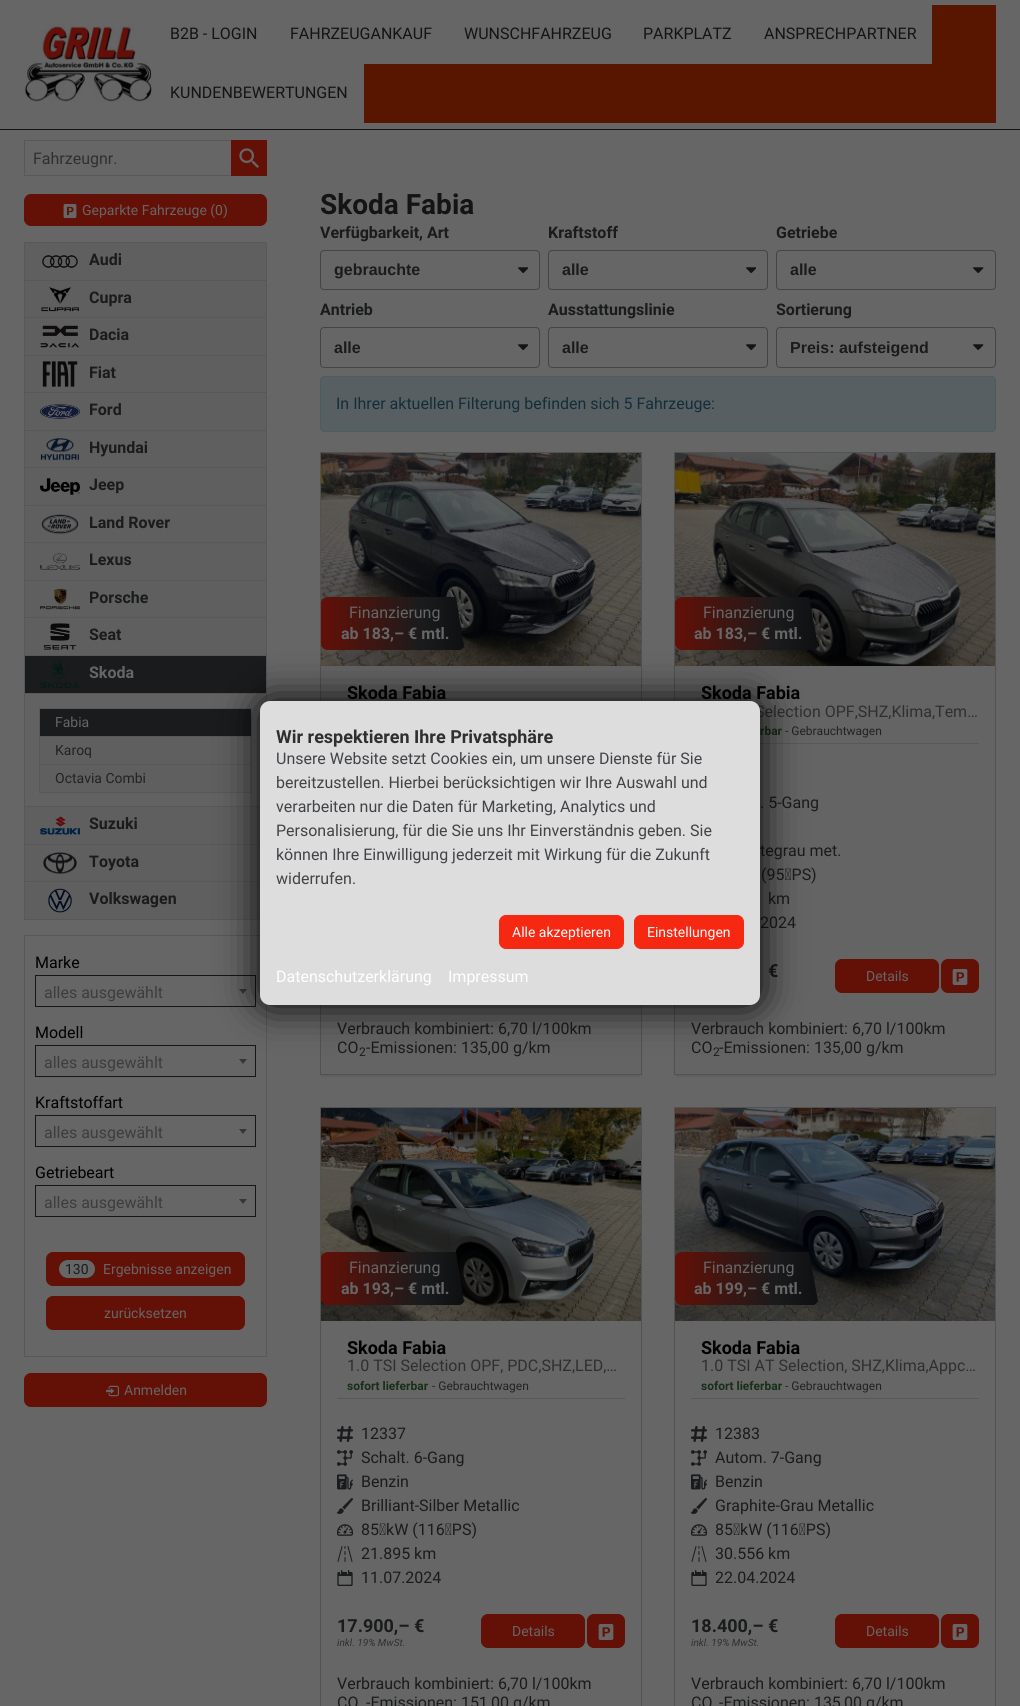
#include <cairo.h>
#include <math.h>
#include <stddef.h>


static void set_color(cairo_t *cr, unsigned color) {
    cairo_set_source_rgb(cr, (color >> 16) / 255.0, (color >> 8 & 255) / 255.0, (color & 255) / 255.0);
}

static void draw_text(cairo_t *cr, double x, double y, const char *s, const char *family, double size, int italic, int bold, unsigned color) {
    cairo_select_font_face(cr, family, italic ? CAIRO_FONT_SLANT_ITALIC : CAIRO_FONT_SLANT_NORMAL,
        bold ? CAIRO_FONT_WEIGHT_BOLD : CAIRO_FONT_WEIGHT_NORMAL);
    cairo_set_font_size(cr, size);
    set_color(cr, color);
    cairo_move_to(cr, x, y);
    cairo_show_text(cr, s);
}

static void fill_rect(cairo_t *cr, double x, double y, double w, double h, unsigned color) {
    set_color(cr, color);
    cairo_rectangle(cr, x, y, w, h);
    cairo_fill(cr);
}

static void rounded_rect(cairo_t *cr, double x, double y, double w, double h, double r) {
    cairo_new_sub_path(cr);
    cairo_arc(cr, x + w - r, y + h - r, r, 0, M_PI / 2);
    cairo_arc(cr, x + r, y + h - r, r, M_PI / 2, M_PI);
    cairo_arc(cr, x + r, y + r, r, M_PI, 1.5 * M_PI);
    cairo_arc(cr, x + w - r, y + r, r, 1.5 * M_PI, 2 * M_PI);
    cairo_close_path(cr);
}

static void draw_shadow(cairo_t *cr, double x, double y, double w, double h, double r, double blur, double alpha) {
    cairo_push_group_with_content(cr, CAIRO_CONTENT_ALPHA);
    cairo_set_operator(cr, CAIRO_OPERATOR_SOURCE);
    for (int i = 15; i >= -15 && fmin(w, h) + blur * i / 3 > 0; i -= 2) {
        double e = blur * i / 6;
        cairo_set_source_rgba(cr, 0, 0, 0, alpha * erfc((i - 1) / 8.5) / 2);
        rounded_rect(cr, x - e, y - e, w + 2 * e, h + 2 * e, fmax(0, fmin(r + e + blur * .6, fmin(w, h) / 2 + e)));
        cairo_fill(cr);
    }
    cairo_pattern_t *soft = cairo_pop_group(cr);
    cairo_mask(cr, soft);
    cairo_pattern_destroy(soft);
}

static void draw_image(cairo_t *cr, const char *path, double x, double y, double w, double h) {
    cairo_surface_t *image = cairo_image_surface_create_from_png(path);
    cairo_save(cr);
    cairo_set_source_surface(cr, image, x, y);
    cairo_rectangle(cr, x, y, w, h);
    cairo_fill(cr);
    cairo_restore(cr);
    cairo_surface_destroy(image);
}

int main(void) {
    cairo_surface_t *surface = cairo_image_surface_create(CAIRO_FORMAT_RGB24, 1020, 1706);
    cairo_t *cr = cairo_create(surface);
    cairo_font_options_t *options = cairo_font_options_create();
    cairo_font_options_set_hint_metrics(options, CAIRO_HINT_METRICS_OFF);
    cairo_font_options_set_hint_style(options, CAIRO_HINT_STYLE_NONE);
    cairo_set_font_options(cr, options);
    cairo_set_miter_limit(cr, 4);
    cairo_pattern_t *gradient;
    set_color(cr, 0x666666);
    cairo_paint(cr);
    fill_rect(cr, 0, 129, 1020, 1, 0x141414);
    draw_image(cr, "assets/img1.png", 24, 24, 128, 78);
    fill_rect(cr, 364, 5, 632, 118, 0x581500);
    draw_text(cr, 170, 39, "B2B - LOGIN", "Roboto", 16, 0, 0, 0x141414);
    fill_rect(cr, 364, 5, 568, 59, 0x666666);
    draw_text(cr, 290, 39, "FAHRZEUGANKAUF", "Roboto", 16, 0, 0, 0x141414);
    draw_text(cr, 464, 39, "WUNSCHFAHRZEUG", "Roboto", 16, 0, 0, 0x141414);
    draw_text(cr, 643, 39, "PARKPLATZ", "Roboto", 16, 0, 0, 0x141414);
    draw_text(cr, 764, 39, "ANSPRECHPARTNER", "Roboto", 16, 0, 0, 0x141414);
    draw_text(cr, 170, 98, "KUNDENBEWERTUNGEN", "Roboto", 16, 0, 0, 0x141414);
    cairo_rectangle(cr, 24.5, 140.5, 242, 35);
    set_color(cr, 0x585858);
    cairo_set_line_width(cr, 1);
    cairo_stroke(cr);
    draw_text(cr, 33, 164, "Fahrzeugnr.", "Roboto", 16, 0, 0, 0x2F2F2F);
    fill_rect(cr, 231, 140, 36, 36, 0x631007);
    draw_image(cr, "assets/img2.png", 239, 148, 20, 20);
    rounded_rect(cr, 24.5, 194.5, 242, 31, 6.5);
    cairo_fill_preserve(cr);
    cairo_stroke(cr);
    draw_image(cr, "assets/img3.png", 63, 204, 14, 14);
    draw_text(cr, 82, 215, "Geparkte Fahrzeuge (0)", "Roboto", 14, 0, 0, 0x666666);
    set_color(cr, 0x5F5F5F);
    cairo_rectangle(cr, 24.5, 242.5, 242, 38);
    cairo_fill_preserve(cr);
    set_color(cr, 0x585858);
    cairo_stroke(cr);
    draw_image(cr, "assets/img4.png", 42, 255, 36, 13);
    draw_text(cr, 89, 265, "Audi", "Roboto", 16, 0, 1, 0x1A1B1C);
    set_color(cr, 0x5F5F5F);
    cairo_rectangle(cr, 24.5, 280.5, 242, 37);
    cairo_fill_preserve(cr);
    set_color(cr, 0x585858);
    cairo_stroke(cr);
    draw_image(cr, "assets/img5.png", 41, 287, 38, 25);
    draw_text(cr, 89, 303, "Cupra", "Roboto", 16, 0, 1, 0x1A1B1C);
    set_color(cr, 0x5F5F5F);
    cairo_rectangle(cr, 24.5, 317.5, 242, 38);
    cairo_fill_preserve(cr);
    set_color(cr, 0x585858);
    cairo_stroke(cr);
    draw_image(cr, "assets/img6.png", 40, 325, 40, 23);
    draw_text(cr, 89, 340, "Dacia", "Roboto", 16, 0, 1, 0x1A1B1C);
    set_color(cr, 0x5F5F5F);
    cairo_rectangle(cr, 24.5, 355.5, 242, 37);
    cairo_fill_preserve(cr);
    set_color(cr, 0x585858);
    cairo_stroke(cr);
    draw_image(cr, "assets/img7.png", 42, 361, 36, 26);
    draw_text(cr, 89, 378, "Fiat", "Roboto", 16, 0, 1, 0x1A1B1C);
    set_color(cr, 0x5F5F5F);
    cairo_rectangle(cr, 24.5, 392.5, 242, 38);
    cairo_fill_preserve(cr);
    set_color(cr, 0x585858);
    cairo_stroke(cr);
    draw_image(cr, "assets/img8.png", 40, 404, 40, 15);
    draw_text(cr, 89, 415, "Ford", "Roboto", 16, 0, 1, 0x1A1B1C);
    set_color(cr, 0x5F5F5F);
    cairo_rectangle(cr, 24.5, 430.5, 242, 37);
    cairo_fill_preserve(cr);
    set_color(cr, 0x585858);
    cairo_stroke(cr);
    draw_image(cr, "assets/img9.png", 40, 438, 39, 23);
    draw_text(cr, 89, 453, "Hyundai", "Roboto", 16, 0, 1, 0x1A1B1C);
    set_color(cr, 0x5F5F5F);
    cairo_rectangle(cr, 24.5, 467.5, 242, 38);
    cairo_fill_preserve(cr);
    set_color(cr, 0x585858);
    cairo_stroke(cr);
    draw_image(cr, "assets/img10.png", 40, 478, 40, 17);
    draw_text(cr, 89, 490, "Jeep", "Roboto", 16, 0, 1, 0x1A1B1C);
    set_color(cr, 0x5F5F5F);
    cairo_rectangle(cr, 24.5, 505.5, 242, 37);
    cairo_fill_preserve(cr);
    set_color(cr, 0x585858);
    cairo_stroke(cr);
    draw_image(cr, "assets/img11.png", 41, 514, 38, 21);
    draw_text(cr, 89, 528, "Land Rover", "Roboto", 16, 0, 1, 0x1A1B1C);
    set_color(cr, 0x5F5F5F);
    cairo_rectangle(cr, 24.5, 542.5, 242, 38);
    cairo_fill_preserve(cr);
    set_color(cr, 0x585858);
    cairo_stroke(cr);
    draw_image(cr, "assets/img12.png", 40, 553, 40, 17);
    draw_text(cr, 89, 565, "Lexus", "Roboto", 16, 0, 1, 0x1A1B1C);
    set_color(cr, 0x5F5F5F);
    cairo_rectangle(cr, 24.5, 580.5, 242, 37);
    cairo_fill_preserve(cr);
    set_color(cr, 0x585858);
    cairo_stroke(cr);
    draw_image(cr, "assets/img13.png", 40, 588, 40, 22);
    draw_text(cr, 89, 603, "Porsche", "Roboto", 16, 0, 1, 0x1A1B1C);
    set_color(cr, 0x5F5F5F);
    cairo_rectangle(cr, 24.5, 617.5, 242, 38);
    cairo_fill_preserve(cr);
    set_color(cr, 0x585858);
    cairo_stroke(cr);
    draw_image(cr, "assets/img14.png", 43, 623, 34, 27);
    draw_text(cr, 89, 640, "Seat", "Roboto", 16, 0, 1, 0x1A1B1C);
    set_color(cr, 0x626262);
    cairo_rectangle(cr, 24.5, 693.5, 242, 113);
    cairo_fill_preserve(cr);
    set_color(cr, 0x585858);
    cairo_stroke(cr);
    set_color(cr, 0x1A1B1C);
    cairo_rectangle(cr, 24.5, 655.5, 242, 38);
    cairo_fill_preserve(cr);
    set_color(cr, 0x585858);
    cairo_stroke(cr);
    draw_image(cr, "assets/img15.png", 40, 661, 40, 27);
    draw_text(cr, 89, 678, "Skoda", "Roboto", 16, 0, 1, 0x666666);
    set_color(cr, 0x1A1B1C);
    cairo_rectangle(cr, 39.5, 708.5, 212, 28);
    cairo_fill_preserve(cr);
    set_color(cr, 0x585858);
    cairo_stroke(cr);
    draw_text(cr, 55, 727, "Fabia", "Roboto", 14, 0, 0, 0x666666);
    set_color(cr, 0x5F5F5F);
    cairo_rectangle(cr, 39.5, 736.5, 212, 28);
    cairo_fill_preserve(cr);
    set_color(cr, 0x585858);
    cairo_stroke(cr);
    draw_text(cr, 55, 755, "Karoq", "Roboto", 14, 0, 0, 0x222222);
    set_color(cr, 0x5F5F5F);
    cairo_rectangle(cr, 39.5, 764.5, 212, 28);
    cairo_fill_preserve(cr);
    set_color(cr, 0x585858);
    cairo_stroke(cr);
    draw_text(cr, 55, 783, "Octavia Combi", "Roboto", 14, 0, 0, 0x222222);
    fill_rect(cr, 25, 807, 235, 37, 0x5F5F5F);
    cairo_rectangle(cr, 24.5, 806.5, 242, 38);
    set_color(cr, 0x585858);
    cairo_stroke(cr);
    draw_image(cr, "assets/img16.png", 40, 816, 40, 19);
    draw_text(cr, 89, 829, "Suzuki", "Roboto", 16, 0, 1, 0x1A1B1C);
    fill_rect(cr, 25, 845, 235, 36, 0x5F5F5F);
    cairo_rectangle(cr, 24.5, 844.5, 242, 37);
    set_color(cr, 0x585858);
    cairo_stroke(cr);
    draw_image(cr, "assets/img17.png", 43, 852, 34, 23);
    draw_text(cr, 89, 867, "Toyota", "Roboto", 16, 0, 1, 0x1A1B1C);
    fill_rect(cr, 25, 882, 235, 37, 0x5F5F5F);
    cairo_rectangle(cr, 24.5, 881.5, 242, 38);
    set_color(cr, 0x585858);
    cairo_stroke(cr);
    draw_image(cr, "assets/img18.png", 48, 888, 24, 25);
    draw_text(cr, 89, 904, "Volkswagen", "Roboto", 16, 0, 1, 0x1A1B1C);
    cairo_rectangle(cr, 24.5, 935.5, 242, 421);
    set_color(cr, 0x585858);
    cairo_stroke(cr);
    draw_text(cr, 35, 968, "Marke", "Roboto", 16, 0, 0, 0x000000);
    cairo_rectangle(cr, 35.5, 975.5, 220, 31);
    set_color(cr, 0x141717);
    cairo_stroke(cr);
    draw_text(cr, 44, 998, "alles ausgewählt", "Roboto", 16, 0, 0, 0x3D3D3D);
    set_color(cr, 0x363636);
    cairo_new_path(cr);
    cairo_move_to(cr, 239, 989);
    cairo_line_to(cr, 247, 989);
    cairo_line_to(cr, 243, 994);
    cairo_close_path(cr);
    cairo_fill(cr);
    draw_text(cr, 35, 1038, "Modell", "Roboto", 16, 0, 0, 0x000000);
    cairo_rectangle(cr, 35.5, 1045.5, 220, 31);
    set_color(cr, 0x141717);
    cairo_stroke(cr);
    draw_text(cr, 44, 1068, "alles ausgewählt", "Roboto", 16, 0, 0, 0x3D3D3D);
    set_color(cr, 0x363636);
    cairo_new_path(cr);
    cairo_move_to(cr, 239, 1059);
    cairo_line_to(cr, 247, 1059);
    cairo_line_to(cr, 243, 1064);
    cairo_close_path(cr);
    cairo_fill(cr);
    draw_text(cr, 35, 1108, "Kraftstoffart", "Roboto", 16, 0, 0, 0x000000);
    cairo_rectangle(cr, 35.5, 1115.5, 220, 31);
    set_color(cr, 0x141717);
    cairo_stroke(cr);
    draw_text(cr, 44, 1138, "alles ausgewählt", "Roboto", 16, 0, 0, 0x3D3D3D);
    set_color(cr, 0x363636);
    cairo_new_path(cr);
    cairo_move_to(cr, 239, 1129);
    cairo_line_to(cr, 247, 1129);
    cairo_line_to(cr, 243, 1134);
    cairo_close_path(cr);
    cairo_fill(cr);
    draw_text(cr, 35, 1178, "Getriebeart", "Roboto", 16, 0, 0, 0x000000);
    cairo_rectangle(cr, 35.5, 1185.5, 220, 31);
    set_color(cr, 0x141717);
    cairo_stroke(cr);
    draw_text(cr, 44, 1208, "alles ausgewählt", "Roboto", 16, 0, 0, 0x3D3D3D);
    set_color(cr, 0x363636);
    cairo_new_path(cr);
    cairo_move_to(cr, 239, 1199);
    cairo_line_to(cr, 247, 1199);
    cairo_line_to(cr, 243, 1204);
    cairo_close_path(cr);
    cairo_fill(cr);
    set_color(cr, 0x631007);
    rounded_rect(cr, 46.5, 1252.5, 198, 33, 6.5);
    cairo_fill_preserve(cr);
    cairo_stroke(cr);
    set_color(cr, 0x666666);
    rounded_rect(cr, 59, 1260, 36, 18, 9);
    cairo_fill(cr);
    draw_text(cr, 65, 1274, "130", "Roboto", 14, 0, 0, 0x1A1B1C);
    draw_text(cr, 103, 1274, "Ergebnisse anzeigen", "Roboto", 14, 0, 0, 0x666666);
    set_color(cr, 0x631007);
    rounded_rect(cr, 46.5, 1296.5, 198, 33, 6.5);
    cairo_fill_preserve(cr);
    cairo_stroke(cr);
    draw_text(cr, 104, 1318, "zurücksetzen", "Roboto", 14, 0, 0, 0x666666);
    set_color(cr, 0x631007);
    rounded_rect(cr, 24.5, 1373.5, 242, 33, 6.5);
    cairo_fill_preserve(cr);
    cairo_stroke(cr);
    draw_image(cr, "assets/img19.png", 106, 1385, 13, 12);
    draw_text(cr, 124, 1395, "Anmelden", "Roboto", 14, 0, 0, 0x666666);
    draw_text(cr, 320, 214, "Skoda Fabia", "Roboto", 28, 0, 1, 0x141414);
    draw_text(cr, 320, 238, "Verfügbarkeit, Art", "Roboto", 16, 0, 1, 0x1A1B1C);
    draw_image(cr, "assets/img20.png", 518, 267, 10, 7);
    rounded_rect(cr, 320.5, 250.5, 219, 39, 3.5);
    set_color(cr, 0x444444);
    cairo_stroke(cr);
    draw_text(cr, 334, 275, "gebrauchte", "Liberation Sans", 16, 0, 1, 0x1A1B1C);
    draw_text(cr, 548, 238, "Kraftstoff", "Roboto", 16, 0, 1, 0x1A1B1C);
    draw_image(cr, "assets/img20.png", 746, 267, 10, 7);
    rounded_rect(cr, 548.5, 250.5, 219, 39, 3.5);
    set_color(cr, 0x444444);
    cairo_stroke(cr);
    draw_text(cr, 562, 275, "alle", "Liberation Sans", 16, 0, 1, 0x1A1B1C);
    draw_text(cr, 776, 238, "Getriebe", "Roboto", 16, 0, 1, 0x1A1B1C);
    draw_image(cr, "assets/img21.png", 973, 267, 11, 7);
    rounded_rect(cr, 776.5, 250.5, 219, 39, 3.5);
    set_color(cr, 0x444444);
    cairo_stroke(cr);
    draw_text(cr, 790, 275, "alle", "Liberation Sans", 16, 0, 1, 0x1A1B1C);
    draw_text(cr, 320, 315, "Antrieb", "Roboto", 16, 0, 1, 0x1A1B1C);
    draw_image(cr, "assets/img20.png", 518, 344, 10, 7);
    rounded_rect(cr, 320.5, 327.5, 219, 40, 3.5);
    set_color(cr, 0x444444);
    cairo_stroke(cr);
    draw_text(cr, 334, 353, "alle", "Liberation Sans", 16, 0, 1, 0x1A1B1C);
    draw_text(cr, 548, 315, "Ausstattungslinie", "Roboto", 16, 0, 1, 0x1A1B1C);
    draw_image(cr, "assets/img20.png", 746, 344, 10, 7);
    rounded_rect(cr, 548.5, 327.5, 219, 40, 3.5);
    set_color(cr, 0x444444);
    cairo_stroke(cr);
    draw_text(cr, 562, 353, "alle", "Liberation Sans", 16, 0, 1, 0x1A1B1C);
    draw_text(cr, 776, 315, "Sortierung", "Roboto", 16, 0, 1, 0x1A1B1C);
    draw_image(cr, "assets/img21.png", 973, 344, 11, 7);
    rounded_rect(cr, 776.5, 327.5, 219, 40, 3.5);
    set_color(cr, 0x444444);
    cairo_stroke(cr);
    draw_text(cr, 790, 353, "Preis: aufsteigend", "Liberation Sans", 16, 0, 1, 0x1A1B1C);
    set_color(cr, 0x575F63);
    rounded_rect(cr, 320.5, 376.5, 675, 55, 3.5);
    cairo_fill_preserve(cr);
    set_color(cr, 0x4B5D60);
    cairo_stroke(cr);
    draw_text(cr, 336, 409, "In Ihrer aktuellen Filterung befinden sich 5 Fahrzeuge:", "Roboto", 16, 0, 0, 0x142D39);
    set_color(cr, 0x1A0C0D);
    draw_shadow(cr, 322, 457, 318, 619, 0, 1.5, 0.14);
    fill_rect(cr, 321, 666, 320, 408, 0x646464);
    cairo_rectangle(cr, 320.5, 452.5, 321, 622);
    set_color(cr, 0x525252);
    cairo_stroke(cr);
    draw_image(cr, "assets/img22.png", 321, 453, 320, 213);
    gradient = cairo_pattern_create_linear(321, 624, 465, 624);
    cairo_pattern_add_color_stop_rgba(gradient, 0, 0.388, 0.063, 0.027, 1);
    cairo_pattern_add_color_stop_rgba(gradient, 0.7, 0.102, 0.106, 0.11, 1);
    cairo_pattern_add_color_stop_rgba(gradient, 1, 0.055, 0.059, 0.063, 1);
    cairo_set_source(cr, gradient);
    cairo_pattern_destroy(gradient);
    cairo_new_path(cr);
    cairo_move_to(cr, 328, 597);
    cairo_line_to(cr, 456, 597);
    cairo_line_to(cr, 464, 646);
    cairo_curve_to(cr, 464, 648, 462, 649, 460, 650);
    cairo_line_to(cr, 326, 650);
    cairo_curve_to(cr, 324, 649, 322, 648, 321, 645);
    cairo_line_to(cr, 321, 602);
    cairo_curve_to(cr, 322, 599, 325, 597, 328, 597);
    cairo_close_path(cr);
    cairo_fill(cr);
    draw_text(cr, 349, 618, "Finanzierung", "Roboto", 16, 0, 0, 0x666666);
    draw_text(cr, 341, 639, "ab 183,– € mtl.", "Roboto", 16, 0, 1, 0x666666);
    draw_text(cr, 347, 699, "Skoda Fabia", "Roboto", 18, 0, 1, 0x000000);
    draw_text(cr, 337, 1034, "Verbrauch kombiniert: 6,70 l/100km", "Roboto", 16, 0, 0, 0x1A1B1C);
    draw_text(cr, 337, 1053, "CO", "Roboto", 16, 0, 0, 0x1A1B1C);
    draw_text(cr, 366, 1053, "-Emissionen: 135,00 g/km", "Roboto", 16, 0, 0, 0x1A1B1C);
    draw_text(cr, 359, 1056, "2", "Roboto", 12, 0, 0, 0x1A1B1C);
    set_color(cr, 0x1A0C0D);
    draw_shadow(cr, 676, 457, 318, 619, 0, 1.5, 0.14);
    fill_rect(cr, 675, 666, 320, 408, 0x646464);
    cairo_rectangle(cr, 674.5, 452.5, 321, 622);
    set_color(cr, 0x525252);
    cairo_stroke(cr);
    draw_image(cr, "assets/img23.png", 675, 453, 320, 213);
    gradient = cairo_pattern_create_linear(675, 624, 819, 624);
    cairo_pattern_add_color_stop_rgba(gradient, 0, 0.388, 0.063, 0.027, 1);
    cairo_pattern_add_color_stop_rgba(gradient, 0.7, 0.102, 0.106, 0.11, 1);
    cairo_pattern_add_color_stop_rgba(gradient, 1, 0.055, 0.059, 0.063, 1);
    cairo_set_source(cr, gradient);
    cairo_pattern_destroy(gradient);
    cairo_new_path(cr);
    cairo_move_to(cr, 682, 597);
    cairo_line_to(cr, 809, 597);
    cairo_line_to(cr, 818, 646);
    cairo_curve_to(cr, 817, 648, 816, 649, 814, 650);
    cairo_line_to(cr, 680, 650);
    cairo_curve_to(cr, 678, 649, 676, 647, 675, 645);
    cairo_line_to(cr, 675, 602);
    cairo_curve_to(cr, 676, 599, 679, 597, 682, 597);
    cairo_close_path(cr);
    cairo_fill(cr);
    draw_text(cr, 703, 618, "Finanzierung", "Roboto", 16, 0, 0, 0x666666);
    draw_text(cr, 694, 639, "ab 183,– € mtl.", "Roboto", 16, 0, 1, 0x666666);
    fill_rect(cr, 760, 743, 219, 1, 0x585858);
    draw_text(cr, 701, 699, "Skoda Fabia", "Roboto", 18, 0, 1, 0x000000);
    draw_text(cr, 755, 717, "Selection OPF,SHZ,Klima,Tem…", "Roboto", 16, 0, 0, 0x2F2F2F);
    draw_text(cr, 760, 735, "rbar", "Roboto", 12, 0, 1, 0x182F18);
    draw_text(cr, 785, 735, "- Gebrauchtwagen", "Roboto", 12, 0, 0, 0x222222);
    draw_text(cr, 760, 808, ". 5-Gang", "Roboto", 16, 0, 0, 0x1A1B1C);
    draw_text(cr, 760, 856, "tegrau met.", "Roboto", 16, 0, 0, 0x1A1B1C);
    draw_text(cr, 761, 880, "(95 PS)", "Roboto", 16, 0, 0, 0x1A1B1C);
    draw_text(cr, 768, 904, "km", "Roboto", 16, 0, 0, 0x1A1B1C);
    draw_text(cr, 760, 928, "2024", "Roboto", 16, 0, 0, 0x1A1B1C);
    draw_text(cr, 768, 977, "€", "Roboto", 18, 0, 1, 0x1A1B1C);
    set_color(cr, 0x631007);
    rounded_rect(cr, 835.5, 959.5, 103, 33, 6.5);
    cairo_fill_preserve(cr);
    cairo_stroke(cr);
    draw_text(cr, 866, 981, "Details", "Roboto", 14, 0, 0, 0x666666);
    set_color(cr, 0x631007);
    rounded_rect(cr, 941.5, 959.5, 37, 33, 6.5);
    cairo_fill_preserve(cr);
    cairo_stroke(cr);
    draw_image(cr, "assets/img24.png", 952, 969, 16, 16);
    draw_text(cr, 691, 1034, "Verbrauch kombiniert: 6,70 l/100km", "Roboto", 16, 0, 0, 0x1A1B1C);
    draw_text(cr, 691, 1053, "CO", "Roboto", 16, 0, 0, 0x1A1B1C);
    draw_text(cr, 713, 1056, "2", "Roboto", 12, 0, 0, 0x1A1B1C);
    draw_text(cr, 719, 1053, "-Emissionen: 135,00 g/km", "Roboto", 16, 0, 0, 0x1A1B1C);
    cairo_rectangle(cr, 320.5, 1107.5, 321, 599);
    set_color(cr, 0x525252);
    cairo_stroke(cr);
    draw_image(cr, "assets/img25.png", 321, 1108, 320, 213);
    gradient = cairo_pattern_create_linear(321, 1279, 465, 1279);
    cairo_pattern_add_color_stop_rgba(gradient, 0, 0.388, 0.063, 0.027, 1);
    cairo_pattern_add_color_stop_rgba(gradient, 0.7, 0.102, 0.106, 0.11, 1);
    cairo_pattern_add_color_stop_rgba(gradient, 1, 0.055, 0.059, 0.063, 1);
    cairo_set_source(cr, gradient);
    cairo_pattern_destroy(gradient);
    cairo_new_path(cr);
    cairo_move_to(cr, 328, 1252);
    cairo_line_to(cr, 456, 1252);
    cairo_line_to(cr, 464, 1301);
    cairo_curve_to(cr, 464, 1303, 462, 1304, 460, 1305);
    cairo_line_to(cr, 326, 1305);
    cairo_curve_to(cr, 324, 1304, 322, 1302, 321, 1300);
    cairo_line_to(cr, 321, 1257);
    cairo_curve_to(cr, 322, 1254, 325, 1252, 328, 1252);
    cairo_close_path(cr);
    cairo_fill(cr);
    draw_text(cr, 349, 1273, "Finanzierung", "Roboto", 16, 0, 0, 0x666666);
    draw_text(cr, 341, 1294, "ab 193,– € mtl.", "Roboto", 16, 0, 1, 0x666666);
    fill_rect(cr, 337, 1398, 288, 1, 0x585858);
    draw_text(cr, 347, 1354, "Skoda Fabia", "Roboto", 18, 0, 1, 0x000000);
    draw_text(cr, 347, 1371, "1.0 TSI Selection OPF, PDC,SHZ,LED,…", "Roboto", 16, 0, 0, 0x2F2F2F);
    draw_text(cr, 347, 1390, "sofort lieferbar", "Roboto", 12, 0, 1, 0x182F18);
    draw_text(cr, 432, 1390, "- Gebrauchtwagen", "Roboto", 12, 0, 0, 0x222222);
    draw_image(cr, "assets/img26.png", 337, 1426, 16, 16);
    draw_text(cr, 361, 1439, "12337", "Roboto", 16, 0, 0, 0x1A1B1C);
    draw_image(cr, "assets/img27.png", 337, 1450, 16, 16);
    draw_text(cr, 361, 1463, "Schalt. 6-Gang", "Roboto", 16, 0, 0, 0x1A1B1C);
    draw_image(cr, "assets/img28.png", 337, 1474, 16, 16);
    draw_text(cr, 361, 1487, "Benzin", "Roboto", 16, 0, 0, 0x1A1B1C);
    draw_image(cr, "assets/img29.png", 337, 1498, 16, 16);
    draw_text(cr, 361, 1511, "Brilliant-Silber Metallic", "Roboto", 16, 0, 0, 0x1A1B1C);
    draw_image(cr, "assets/img30.png", 337, 1524, 16, 12);
    draw_text(cr, 361, 1535, "85 kW (116 PS)", "Roboto", 16, 0, 0, 0x1A1B1C);
    draw_image(cr, "assets/img31.png", 337, 1546, 16, 16);
    draw_text(cr, 361, 1559, "21.895 km", "Roboto", 16, 0, 0, 0x1A1B1C);
    draw_image(cr, "assets/img32.png", 337, 1570, 16, 16);
    draw_text(cr, 361, 1583, "11.07.2024", "Roboto", 16, 0, 0, 0x1A1B1C);
    draw_text(cr, 337, 1632, "17.900,– €", "Roboto", 18, 0, 1, 0x1A1B1C);
    draw_text(cr, 337, 1646, "inkl. 19% MwSt.", "Roboto", 10, 1, 0, 0x2F2F2F);
    set_color(cr, 0x631007);
    rounded_rect(cr, 481.5, 1614.5, 103, 33, 6.5);
    cairo_fill_preserve(cr);
    cairo_stroke(cr);
    draw_text(cr, 512, 1636, "Details", "Roboto", 14, 0, 0, 0x666666);
    set_color(cr, 0x631007);
    rounded_rect(cr, 587.5, 1614.5, 37, 33, 6.5);
    cairo_fill_preserve(cr);
    cairo_stroke(cr);
    draw_image(cr, "assets/img24.png", 598, 1624, 16, 16);
    draw_text(cr, 337, 1689, "Verbrauch kombiniert: 6,70 l/100km", "Roboto", 16, 0, 0, 0x1A1B1C);
    draw_text(cr, 337, 1708, "CO", "Roboto", 16, 0, 0, 0x1A1B1C);
    draw_text(cr, 366, 1708, "-Emissionen: 151,00 g/km", "Roboto", 16, 0, 0, 0x1A1B1C);
    cairo_rectangle(cr, 674.5, 1107.5, 321, 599);
    set_color(cr, 0x525252);
    cairo_stroke(cr);
    draw_image(cr, "assets/img33.png", 675, 1108, 320, 213);
    gradient = cairo_pattern_create_linear(675, 1279, 819, 1279);
    cairo_pattern_add_color_stop_rgba(gradient, 0, 0.388, 0.063, 0.027, 1);
    cairo_pattern_add_color_stop_rgba(gradient, 0.7, 0.102, 0.106, 0.11, 1);
    cairo_pattern_add_color_stop_rgba(gradient, 1, 0.055, 0.059, 0.063, 1);
    cairo_set_source(cr, gradient);
    cairo_pattern_destroy(gradient);
    cairo_new_path(cr);
    cairo_move_to(cr, 682, 1252);
    cairo_line_to(cr, 809, 1252);
    cairo_line_to(cr, 818, 1301);
    cairo_curve_to(cr, 817, 1303, 816, 1304, 814, 1305);
    cairo_line_to(cr, 680, 1305);
    cairo_curve_to(cr, 678, 1304, 676, 1302, 675, 1300);
    cairo_line_to(cr, 675, 1257);
    cairo_curve_to(cr, 676, 1254, 679, 1252, 682, 1252);
    cairo_close_path(cr);
    cairo_fill(cr);
    draw_text(cr, 703, 1273, "Finanzierung", "Roboto", 16, 0, 0, 0x666666);
    draw_text(cr, 694, 1294, "ab 199,– € mtl.", "Roboto", 16, 0, 1, 0x666666);
    fill_rect(cr, 691, 1398, 288, 1, 0x585858);
    draw_text(cr, 701, 1354, "Skoda Fabia", "Roboto", 18, 0, 1, 0x000000);
    draw_text(cr, 701, 1371, "1.0 TSI AT Selection, SHZ,Klima,Appc…", "Roboto", 16, 0, 0, 0x2F2F2F);
    draw_text(cr, 701, 1390, "sofort lieferbar", "Roboto", 12, 0, 1, 0x182F18);
    draw_text(cr, 785, 1390, "- Gebrauchtwagen", "Roboto", 12, 0, 0, 0x222222);
    draw_image(cr, "assets/img26.png", 691, 1426, 16, 16);
    draw_text(cr, 715, 1439, "12383", "Roboto", 16, 0, 0, 0x1A1B1C);
    draw_image(cr, "assets/img27.png", 691, 1450, 16, 16);
    draw_text(cr, 715, 1463, "Autom. 7-Gang", "Roboto", 16, 0, 0, 0x1A1B1C);
    draw_image(cr, "assets/img28.png", 691, 1474, 16, 16);
    draw_text(cr, 715, 1487, "Benzin", "Roboto", 16, 0, 0, 0x1A1B1C);
    draw_image(cr, "assets/img29.png", 691, 1498, 16, 16);
    draw_text(cr, 715, 1511, "Graphite-Grau Metallic", "Roboto", 16, 0, 0, 0x1A1B1C);
    draw_image(cr, "assets/img30.png", 691, 1524, 16, 12);
    draw_text(cr, 715, 1535, "85 kW (116 PS)", "Roboto", 16, 0, 0, 0x1A1B1C);
    draw_image(cr, "assets/img31.png", 691, 1546, 16, 16);
    draw_text(cr, 715, 1559, "30.556 km", "Roboto", 16, 0, 0, 0x1A1B1C);
    draw_image(cr, "assets/img32.png", 691, 1570, 16, 16);
    draw_text(cr, 715, 1583, "22.04.2024", "Roboto", 16, 0, 0, 0x1A1B1C);
    draw_text(cr, 691, 1632, "18.400,– €", "Roboto", 18, 0, 1, 0x1A1B1C);
    draw_text(cr, 691, 1646, "inkl. 19% MwSt.", "Roboto", 10, 1, 0, 0x2F2F2F);
    set_color(cr, 0x631007);
    rounded_rect(cr, 835.5, 1614.5, 103, 33, 6.5);
    cairo_fill_preserve(cr);
    cairo_stroke(cr);
    draw_text(cr, 866, 1636, "Details", "Roboto", 14, 0, 0, 0x666666);
    set_color(cr, 0x631007);
    rounded_rect(cr, 941.5, 1614.5, 37, 33, 6.5);
    cairo_fill_preserve(cr);
    cairo_stroke(cr);
    draw_image(cr, "assets/img24.png", 952, 1624, 16, 16);
    draw_text(cr, 691, 1689, "Verbrauch kombiniert: 6,70 l/100km", "Roboto", 16, 0, 0, 0x1A1B1C);
    draw_text(cr, 691, 1708, "CO", "Roboto", 16, 0, 0, 0x1A1B1C);
    draw_text(cr, 719, 1708, "-Emissionen: 135,00 g/km", "Roboto", 16, 0, 0, 0x1A1B1C);
    set_color(cr, 0x000000);
    draw_shadow(cr, 260, 701, 500, 304, 10, 20, 1);
    set_color(cr, 0xDDDDDD);
    rounded_rect(cr, 260, 701, 500, 304, 10);
    cairo_fill(cr);
    draw_text(cr, 276, 743, "Wir respektieren Ihre Privatsphäre", "Roboto", 18, 0, 1, 0x2F2F2F);
    draw_text(cr, 276, 764, "Unsere Website setzt Cookies ein, um unsere Dienste für Sie", "Roboto", 16, 0, 0, 0x414347);
    draw_text(cr, 276, 788, "bereitzustellen. Hierbei berücksichtigen wir Ihre Auswahl und", "Roboto", 16, 0, 0, 0x414347);
    draw_text(cr, 276, 812, "verarbeiten nur die Daten für Marketing, Analytics und", "Roboto", 16, 0, 0, 0x414347);
    draw_text(cr, 276, 836, "Personalisierung, für die Sie uns Ihr Einverständnis geben. Sie", "Roboto", 16, 0, 0, 0x414347);
    draw_text(cr, 276, 860, "können Ihre Einwilligung jederzeit mit Wirkung für die Zukunft", "Roboto", 16, 0, 0, 0x414347);
    draw_text(cr, 276, 884, "widerrufen.", "Roboto", 16, 0, 0, 0x414347);
    set_color(cr, 0xF72812);
    rounded_rect(cr, 499.5, 915.5, 124, 33, 6.5);
    cairo_fill_preserve(cr);
    cairo_stroke(cr);
    draw_text(cr, 512, 937, "Alle akzeptieren", "Roboto", 14, 0, 0, 0xFFFFFF);
    set_color(cr, 0xF72812);
    rounded_rect(cr, 634.5, 915.5, 109, 33, 6.5);
    cairo_fill_preserve(cr);
    cairo_stroke(cr);
    draw_text(cr, 647, 937, "Einstellungen", "Roboto", 14, 0, 0, 0xFFFFFF);
    draw_text(cr, 276, 982, "Datenschutzerklärung", "Roboto", 16, 0, 0, 0xFFFFFF);
    draw_text(cr, 448, 982, "Impressum", "Roboto", 16, 0, 0, 0xFFFFFF);
    cairo_surface_write_to_png(surface, "output.png");
    cairo_font_options_destroy(options);
    cairo_destroy(cr);
    cairo_surface_destroy(surface);
    return 0;
}
